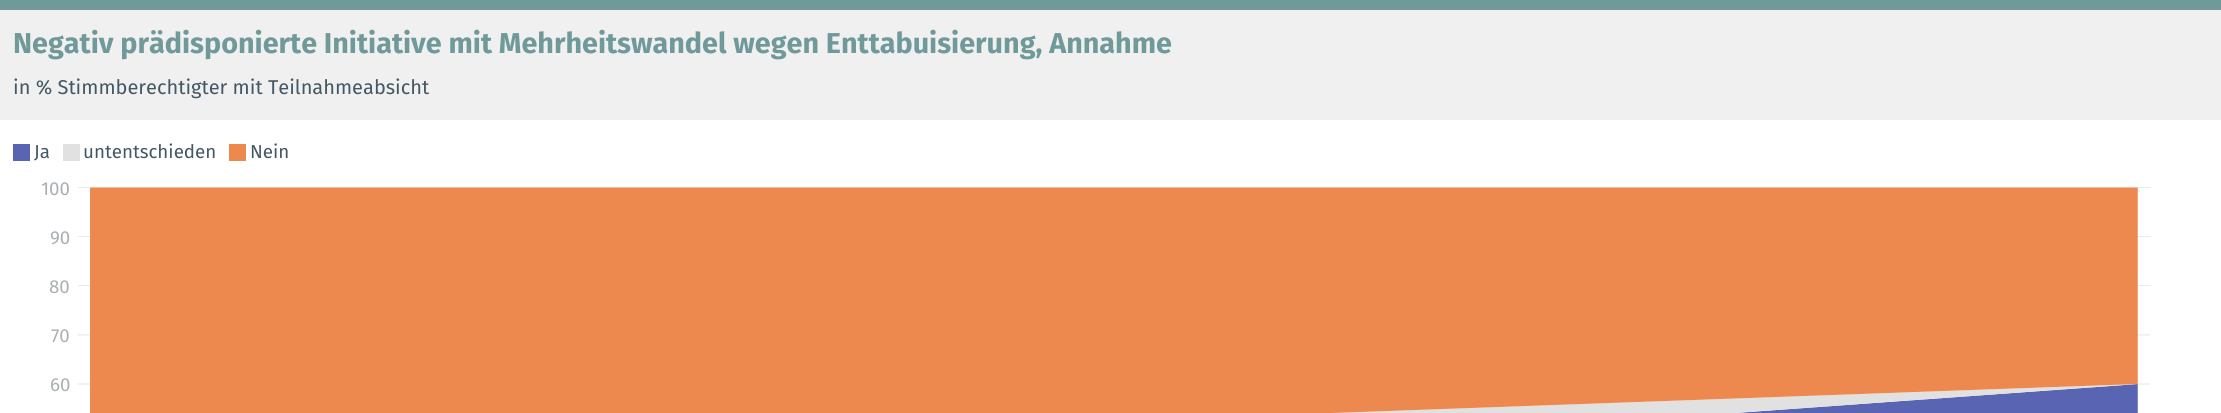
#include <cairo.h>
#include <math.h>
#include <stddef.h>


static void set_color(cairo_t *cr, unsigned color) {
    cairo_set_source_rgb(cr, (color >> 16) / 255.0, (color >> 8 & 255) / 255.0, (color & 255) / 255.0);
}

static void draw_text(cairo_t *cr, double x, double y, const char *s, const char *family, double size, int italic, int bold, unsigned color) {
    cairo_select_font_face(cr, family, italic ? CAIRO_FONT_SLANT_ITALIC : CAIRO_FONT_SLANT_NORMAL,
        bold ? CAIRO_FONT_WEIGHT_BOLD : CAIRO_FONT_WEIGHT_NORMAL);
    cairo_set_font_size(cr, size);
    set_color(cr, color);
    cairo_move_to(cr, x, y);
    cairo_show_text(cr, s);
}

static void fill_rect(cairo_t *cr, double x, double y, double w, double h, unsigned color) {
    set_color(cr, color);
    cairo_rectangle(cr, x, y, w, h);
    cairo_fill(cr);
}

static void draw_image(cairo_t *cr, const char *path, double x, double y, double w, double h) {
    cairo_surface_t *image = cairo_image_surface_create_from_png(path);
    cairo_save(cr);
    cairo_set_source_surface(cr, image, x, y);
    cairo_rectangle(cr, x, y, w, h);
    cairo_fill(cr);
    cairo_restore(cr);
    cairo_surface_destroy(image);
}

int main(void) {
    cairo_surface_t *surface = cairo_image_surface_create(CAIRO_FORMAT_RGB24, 2221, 413);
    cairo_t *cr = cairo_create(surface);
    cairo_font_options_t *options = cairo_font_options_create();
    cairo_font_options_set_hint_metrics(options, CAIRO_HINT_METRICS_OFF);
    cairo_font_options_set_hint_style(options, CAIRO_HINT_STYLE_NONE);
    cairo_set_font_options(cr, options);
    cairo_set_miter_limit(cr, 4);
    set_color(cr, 0xFFFFFF);
    cairo_paint(cr);
    fill_rect(cr, 0, 10, 2221, 110, 0xF0F0F0);
    fill_rect(cr, 0, 0, 2221, 10, 0x709999);
    draw_text(cr, 13, 53, "Negativ prädisponierte Initiative mit Mehrheitswandel wegen Enttabuisierung, Annahme", "Fira Sans", 28.75, 0, 1, 0x709999);
    draw_text(cr, 13, 94, "in % Stimmberechtigter mit Teilnahmeabsicht", "Fira Sans", 20, 0, 0, 0x435764);
    fill_rect(cr, 13, 144, 17, 17, 0x5965B2);
    draw_text(cr, 34, 158, "Ja", "Fira Sans", 18.75, 0, 0, 0x435764);
    fill_rect(cr, 63, 144, 17, 17, 0xE1E1E1);
    draw_text(cr, 83, 158, "untentschieden", "Fira Sans", 18.75, 0, 0, 0x435764);
    fill_rect(cr, 229, 144, 17, 17, 0xED884E);
    draw_text(cr, 250, 158, "Nein", "Fira Sans", 18.75, 0, 0, 0x435764);
    draw_image(cr, "assets/img1.png", 77, 187, 2074, 226);
    draw_text(cr, 41, 195, "100", "Fira Sans", 18.75, 0, 0, 0xA9AFB3);
    draw_text(cr, 50, 244, "90", "Fira Sans", 18.75, 0, 0, 0xA9AFB3);
    draw_text(cr, 49, 293, "80", "Fira Sans", 18.75, 0, 0, 0xA9AFB3);
    draw_text(cr, 51, 342, "70", "Fira Sans", 18.75, 0, 0, 0xA9AFB3);
    draw_text(cr, 50, 391, "60", "Fira Sans", 18.75, 0, 0, 0xA9AFB3);
    cairo_surface_write_to_png(surface, "output.png");
    cairo_font_options_destroy(options);
    cairo_destroy(cr);
    cairo_surface_destroy(surface);
    return 0;
}
